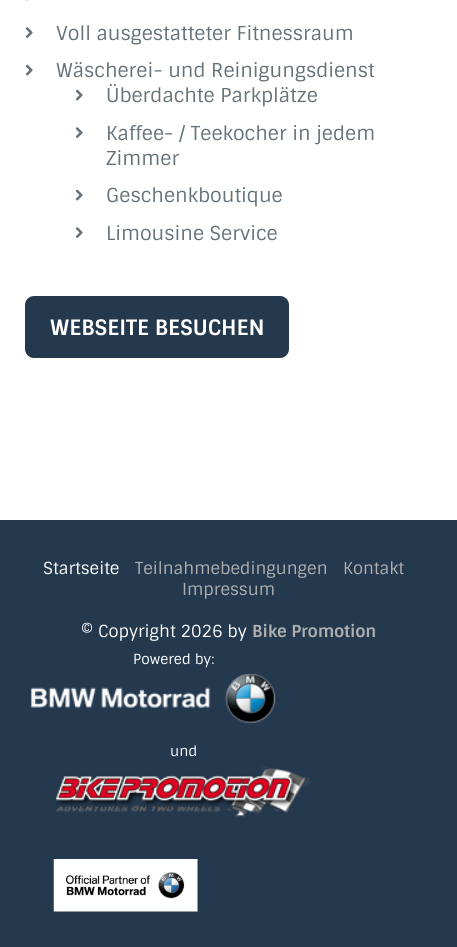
#include <cairo.h>
#include <math.h>
#include <stddef.h>


static void set_color(cairo_t *cr, unsigned color) {
    cairo_set_source_rgb(cr, (color >> 16) / 255.0, (color >> 8 & 255) / 255.0, (color & 255) / 255.0);
}

static void draw_text(cairo_t *cr, double x, double y, const char *s, const char *family, double size, int italic, int bold, unsigned color) {
    cairo_select_font_face(cr, family, italic ? CAIRO_FONT_SLANT_ITALIC : CAIRO_FONT_SLANT_NORMAL,
        bold ? CAIRO_FONT_WEIGHT_BOLD : CAIRO_FONT_WEIGHT_NORMAL);
    cairo_set_font_size(cr, size);
    set_color(cr, color);
    cairo_move_to(cr, x, y);
    cairo_show_text(cr, s);
}

static void fill_rect(cairo_t *cr, double x, double y, double w, double h, unsigned color) {
    set_color(cr, color);
    cairo_rectangle(cr, x, y, w, h);
    cairo_fill(cr);
}

static void rounded_rect(cairo_t *cr, double x, double y, double w, double h, double r) {
    cairo_new_sub_path(cr);
    cairo_arc(cr, x + w - r, y + h - r, r, 0, M_PI / 2);
    cairo_arc(cr, x + r, y + h - r, r, M_PI / 2, M_PI);
    cairo_arc(cr, x + r, y + r, r, M_PI, 1.5 * M_PI);
    cairo_arc(cr, x + w - r, y + r, r, 1.5 * M_PI, 2 * M_PI);
    cairo_close_path(cr);
}

static void draw_image(cairo_t *cr, const char *path, double x, double y, double w, double h) {
    cairo_surface_t *image = cairo_image_surface_create_from_png(path);
    cairo_save(cr);
    cairo_set_source_surface(cr, image, x, y);
    cairo_rectangle(cr, x, y, w, h);
    cairo_fill(cr);
    cairo_restore(cr);
    cairo_surface_destroy(image);
}

int main(void) {
    cairo_surface_t *surface = cairo_image_surface_create(CAIRO_FORMAT_RGB24, 457, 947);
    cairo_t *cr = cairo_create(surface);
    cairo_font_options_t *options = cairo_font_options_create();
    cairo_font_options_set_hint_metrics(options, CAIRO_HINT_METRICS_OFF);
    cairo_font_options_set_hint_style(options, CAIRO_HINT_STYLE_NONE);
    cairo_set_font_options(cr, options);
    cairo_set_miter_limit(cr, 4);
    set_color(cr, 0x24384E);
    cairo_paint(cr);
    fill_rect(cr, 0, 0, 457, 520, 0xFFFFFF);
    draw_image(cr, "assets/img1.png", 26, 0, 2, 1);
    draw_image(cr, "assets/img2.png", 25, 27, 8, 11);
    draw_text(cr, 56, 40, "Voll ausgestatteter Fitnessraum", "Sintony", 19.25, 0, 0, 0x667279);
    draw_image(cr, "assets/img3.png", 25, 64, 8, 12);
    draw_text(cr, 56, 77, "Wäscherei- und Reinigungsdienst", "Sintony", 19.25, 0, 0, 0x667279);
    draw_image(cr, "assets/img3.png", 75, 89, 8, 12);
    draw_text(cr, 106, 102, "Überdachte Parkplätze", "Sintony", 19.25, 0, 0, 0x667279);
    draw_image(cr, "assets/img2.png", 75, 127, 8, 11);
    draw_text(cr, 106, 140, "Kaffee- / Teekocher in jedem", "Sintony", 19.25, 0, 0, 0x667279);
    draw_text(cr, 106, 165, "Zimmer", "Sintony", 19.25, 0, 0, 0x667279);
    draw_image(cr, "assets/img3.png", 75, 189, 8, 12);
    draw_text(cr, 106, 202, "Geschenkboutique", "Sintony", 19.25, 0, 0, 0x667279);
    draw_image(cr, "assets/img2.png", 75, 227, 8, 11);
    draw_text(cr, 106, 240, "Limousine Service", "Sintony", 19.25, 0, 0, 0x667279);
    set_color(cr, 0x24384E);
    rounded_rect(cr, 25, 296, 264, 62, 9);
    cairo_fill(cr);
    draw_text(cr, 50, 335, "WEBSEITE BESUCHEN", "Sintony", 21.25, 0, 1, 0xFFFFFF);
    draw_text(cr, 43, 574, "Startseite", "Sintony", 16.6, 0, 0, 0xFFFFFF);
    draw_text(cr, 135, 574, "Teilnahmebedingungen", "Sintony", 16.6, 0, 0, 0xB0B0B0);
    draw_text(cr, 343, 574, "Kontakt", "Sintony", 16.6, 0, 0, 0xB0B0B0);
    draw_text(cr, 182, 595, "Impressum", "Sintony", 16.6, 0, 0, 0xB0B0B0);
    draw_text(cr, 81, 637, "© Copyright 2026 by", "Sintony", 16.6, 0, 0, 0xFFFFFF);
    draw_text(cr, 252, 637, "Bike Promotion", "Sintony", 16.6, 0, 1, 0xB0B0B0);
    draw_text(cr, 133, 664, "Powered by:", "Sintony", 14, 0, 0, 0xFFFFFF);
    draw_image(cr, "assets/img4.png", 31, 673, 245, 50);
    draw_text(cr, 170, 756, "und", "Sintony", 14, 0, 0, 0xFFFFFF);
    draw_image(cr, "assets/img5.png", 55, 765, 256, 53);
    draw_image(cr, "assets/img6.png", 53, 859, 145, 53);
    cairo_surface_write_to_png(surface, "output.png");
    cairo_font_options_destroy(options);
    cairo_destroy(cr);
    cairo_surface_destroy(surface);
    return 0;
}
